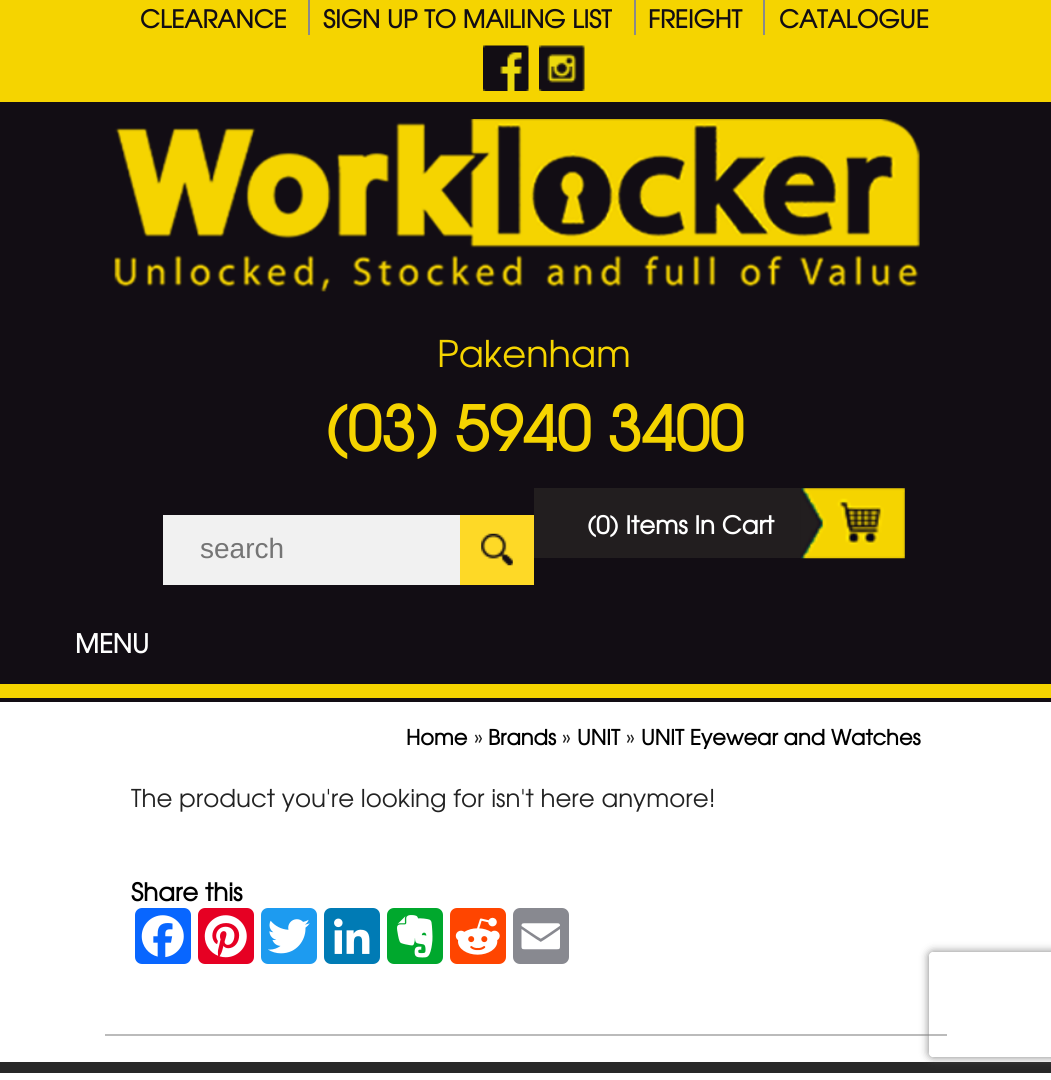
#include <cairo.h>
#include <math.h>
#include <stddef.h>


static void set_color(cairo_t *cr, unsigned color) {
    cairo_set_source_rgb(cr, (color >> 16) / 255.0, (color >> 8 & 255) / 255.0, (color & 255) / 255.0);
}

static void draw_text(cairo_t *cr, double x, double y, const char *s, const char *family, double size, int italic, int bold, unsigned color) {
    cairo_select_font_face(cr, family, italic ? CAIRO_FONT_SLANT_ITALIC : CAIRO_FONT_SLANT_NORMAL,
        bold ? CAIRO_FONT_WEIGHT_BOLD : CAIRO_FONT_WEIGHT_NORMAL);
    cairo_set_font_size(cr, size);
    set_color(cr, color);
    cairo_move_to(cr, x, y);
    cairo_show_text(cr, s);
}

static void fill_rect(cairo_t *cr, double x, double y, double w, double h, unsigned color) {
    set_color(cr, color);
    cairo_rectangle(cr, x, y, w, h);
    cairo_fill(cr);
}

static void rounded_rect(cairo_t *cr, double x, double y, double w, double h, double r) {
    cairo_new_sub_path(cr);
    cairo_arc(cr, x + w - r, y + h - r, r, 0, M_PI / 2);
    cairo_arc(cr, x + r, y + h - r, r, M_PI / 2, M_PI);
    cairo_arc(cr, x + r, y + r, r, M_PI, 1.5 * M_PI);
    cairo_arc(cr, x + w - r, y + r, r, 1.5 * M_PI, 2 * M_PI);
    cairo_close_path(cr);
}

static void draw_shadow(cairo_t *cr, double x, double y, double w, double h, double r, double blur, double alpha) {
    cairo_push_group_with_content(cr, CAIRO_CONTENT_ALPHA);
    cairo_set_operator(cr, CAIRO_OPERATOR_SOURCE);
    for (int i = 15; i >= -15 && fmin(w, h) + blur * i / 3 > 0; i -= 2) {
        double e = blur * i / 6;
        cairo_set_source_rgba(cr, 0, 0, 0, alpha * erfc((i - 1) / 8.5) / 2);
        rounded_rect(cr, x - e, y - e, w + 2 * e, h + 2 * e, fmax(0, fmin(r + e + blur * .6, fmin(w, h) / 2 + e)));
        cairo_fill(cr);
    }
    cairo_pattern_t *soft = cairo_pop_group(cr);
    cairo_mask(cr, soft);
    cairo_pattern_destroy(soft);
}

static void draw_image(cairo_t *cr, const char *path, double x, double y, double w, double h) {
    cairo_surface_t *image = cairo_image_surface_create_from_png(path);
    cairo_save(cr);
    cairo_set_source_surface(cr, image, x, y);
    cairo_rectangle(cr, x, y, w, h);
    cairo_fill(cr);
    cairo_restore(cr);
    cairo_surface_destroy(image);
}

int main(void) {
    cairo_surface_t *surface = cairo_image_surface_create(CAIRO_FORMAT_RGB24, 1051, 1080);
    cairo_t *cr = cairo_create(surface);
    cairo_font_options_t *options = cairo_font_options_create();
    cairo_font_options_set_hint_metrics(options, CAIRO_HINT_METRICS_OFF);
    cairo_font_options_set_hint_style(options, CAIRO_HINT_STYLE_NONE);
    cairo_set_font_options(cr, options);
    cairo_set_miter_limit(cr, 4);
    set_color(cr, 0xFFFFFF);
    cairo_paint(cr);
    fill_rect(cr, 0, 0, 1051, 102, 0xF5D400);
    draw_text(cr, 140, 28, "CLEARANCE", "TeX Gyre Adventor", 24.5, 0, 1, 0x120D14);
    fill_rect(cr, 308, 0, 2, 35, 0x8A8A8A);
    draw_text(cr, 323, 28, "SIGN UP TO MAILING LIST", "TeX Gyre Adventor", 24.5, 0, 1, 0x120D14);
    fill_rect(cr, 634, 0, 2, 35, 0x8A8A8A);
    draw_text(cr, 648, 28, "FREIGHT", "TeX Gyre Adventor", 24.5, 0, 1, 0x120D14);
    fill_rect(cr, 763, 0, 2, 35, 0x8A8A8A);
    draw_text(cr, 779, 28, "CATALOGUE", "TeX Gyre Adventor", 24.5, 0, 1, 0x120D14);
    draw_image(cr, "assets/img1.png", 483, 45, 46, 46);
    draw_image(cr, "assets/img2.png", 539, 45, 46, 46);
    fill_rect(cr, 0, 102, 1051, 582, 0x120D14);
    draw_image(cr, "assets/img3.png", 114, 119, 806, 173);
    draw_text(cr, 437, 367, "Pakenham", "TeX Gyre Adventor", 36.75, 0, 0, 0xF5D400);
    draw_text(cr, 325, 451, "(03) 5940 3400", "TeX Gyre Adventor", 61.25, 0, 1, 0xF5D400);
    fill_rect(cr, 534, 488, 371, 70, 0x221E1F);
    draw_text(cr, 587, 534, "(0) Items In Cart", "TeX Gyre Adventor", 24.5, 0, 1, 0xFFFFFF);
    draw_image(cr, "assets/img4.png", 800, 488, 105, 71);
    fill_rect(cr, 163, 515, 297, 70, 0xF1F1F1);
    draw_text(cr, 200, 558, "search", "Liberation Sans", 28, 0, 0, 0x757575);
    fill_rect(cr, 460, 515, 74, 70, 0xFED926);
    draw_image(cr, "assets/img5.png", 481, 533, 32, 33);
    fill_rect(cr, 0, 684, 1051, 14, 0xF5D400);
    fill_rect(cr, 0, 698, 1051, 4, 0x120D14);
    draw_text(cr, 75, 653, "MENU", "TeX Gyre Adventor", 26, 0, 1, 0xFFFFFF);
    draw_text(cr, 406, 745, "Home", "TeX Gyre Adventor", 21, 0, 1, 0x000000);
    draw_text(cr, 474, 745, "»", "TeX Gyre Adventor", 21, 0, 0, 0x222222);
    draw_text(cr, 488, 745, "Brands", "TeX Gyre Adventor", 21, 0, 1, 0x000000);
    draw_text(cr, 562, 745, "»", "TeX Gyre Adventor", 21, 0, 0, 0x222222);
    draw_text(cr, 577, 745, "UNIT", "TeX Gyre Adventor", 21, 0, 1, 0x000000);
    draw_text(cr, 626, 745, "»", "TeX Gyre Adventor", 21, 0, 0, 0x222222);
    draw_text(cr, 641, 745, "UNIT Eyewear and Watches", "TeX Gyre Adventor", 21, 0, 1, 0x000000);
    draw_text(cr, 131, 807, "The product you're looking for isn't here anymore!", "TeX Gyre Adventor", 24.5, 0, 0, 0x222222);
    draw_text(cr, 131, 901, "Share this", "TeX Gyre Adventor", 24.5, 0, 1, 0x000000);
    set_color(cr, 0x0866FF);
    rounded_rect(cr, 135, 908, 56, 56, 7);
    cairo_fill(cr);
    draw_image(cr, "assets/img6.png", 141, 915, 43, 43);
    set_color(cr, 0xE60023);
    rounded_rect(cr, 198, 908, 56, 56, 7);
    cairo_fill(cr);
    draw_image(cr, "assets/img7.png", 204, 915, 43, 43);
    set_color(cr, 0x1D9BF0);
    rounded_rect(cr, 261, 908, 56, 56, 7);
    cairo_fill(cr);
    draw_image(cr, "assets/img8.png", 268, 919, 42, 35);
    set_color(cr, 0x007BB5);
    rounded_rect(cr, 324, 908, 56, 56, 7);
    cairo_fill(cr);
    draw_image(cr, "assets/img9.png", 334, 918, 36, 36);
    set_color(cr, 0x00A82D);
    rounded_rect(cr, 387, 908, 56, 56, 7);
    cairo_fill(cr);
    draw_image(cr, "assets/img10.png", 397, 915, 36, 43);
    set_color(cr, 0xFF4500);
    rounded_rect(cr, 450, 908, 56, 56, 7);
    cairo_fill(cr);
    draw_image(cr, "assets/img11.png", 455, 917, 45, 38);
    set_color(cr, 0x888990);
    rounded_rect(cr, 513, 908, 56, 56, 7);
    cairo_fill(cr);
    draw_image(cr, "assets/img12.png", 521, 923, 39, 27);
    fill_rect(cr, 105, 1034, 842, 2, 0xBBBBBB);
    fill_rect(cr, 0, 1062, 1051, 11, 0x282828);
    cairo_save(cr);
    cairo_set_fill_rule(cr, CAIRO_FILL_RULE_EVEN_ODD);
    cairo_new_path(cr);
    cairo_move_to(cr, 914, 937);
    cairo_line_to(cr, 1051, 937);
    cairo_line_to(cr, 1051, 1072);
    cairo_line_to(cr, 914, 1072);
    cairo_close_path(cr);
    cairo_move_to(cr, 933, 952);
    cairo_line_to(cr, 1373, 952);
    cairo_curve_to(cr, 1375, 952, 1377, 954, 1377, 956);
    cairo_line_to(cr, 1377, 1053);
    cairo_curve_to(cr, 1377, 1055, 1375, 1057, 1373, 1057);
    cairo_line_to(cr, 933, 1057);
    cairo_curve_to(cr, 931, 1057, 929, 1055, 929, 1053);
    cairo_line_to(cr, 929, 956);
    cairo_curve_to(cr, 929, 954, 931, 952, 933, 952);
    cairo_close_path(cr);
    cairo_clip(cr);
    set_color(cr, 0x808080);
    draw_shadow(cr, 929, 952, 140, 105, 4, 4.5, 1);
    cairo_restore(cr);
    cairo_surface_write_to_png(surface, "output.png");
    cairo_font_options_destroy(options);
    cairo_destroy(cr);
    cairo_surface_destroy(surface);
    return 0;
}
